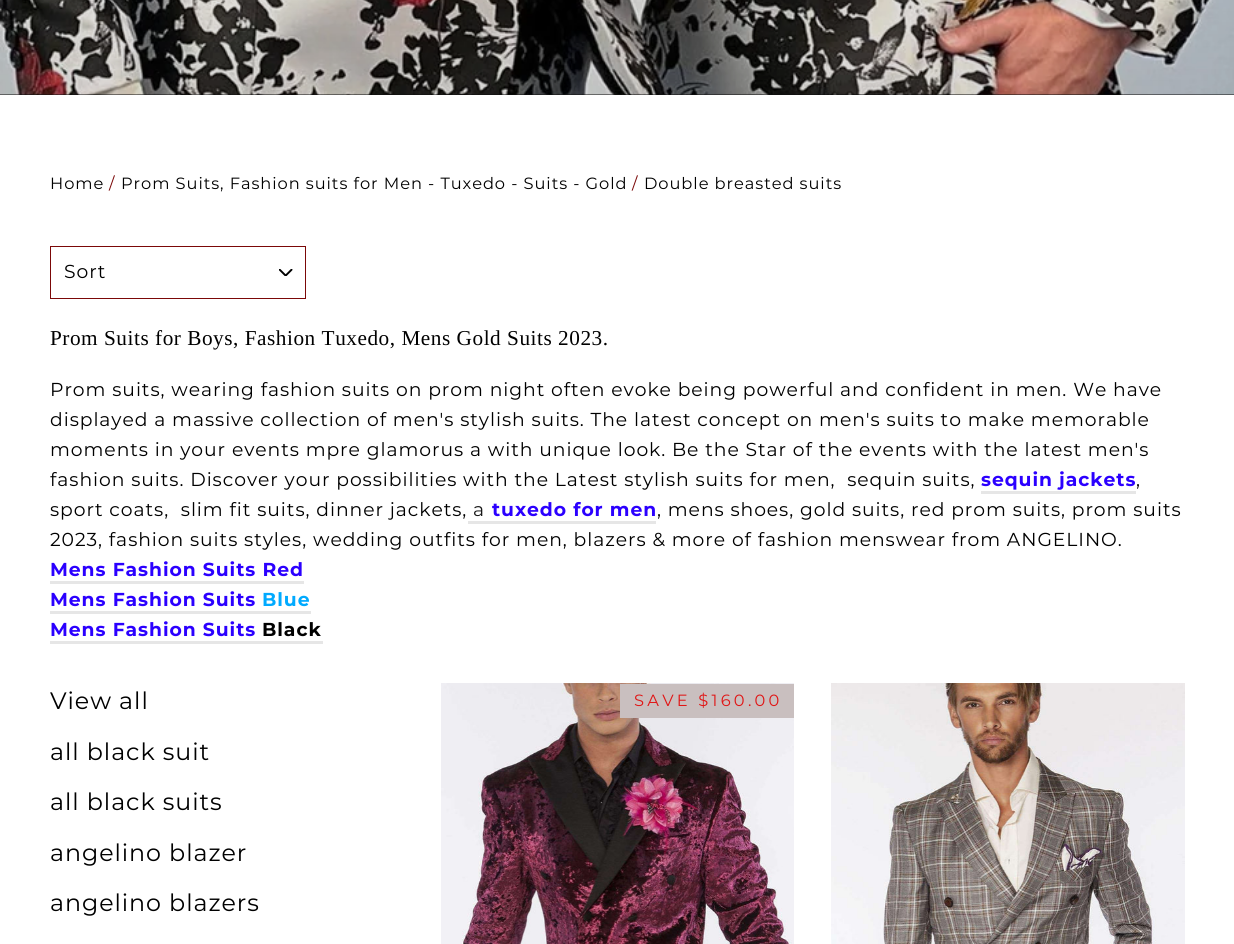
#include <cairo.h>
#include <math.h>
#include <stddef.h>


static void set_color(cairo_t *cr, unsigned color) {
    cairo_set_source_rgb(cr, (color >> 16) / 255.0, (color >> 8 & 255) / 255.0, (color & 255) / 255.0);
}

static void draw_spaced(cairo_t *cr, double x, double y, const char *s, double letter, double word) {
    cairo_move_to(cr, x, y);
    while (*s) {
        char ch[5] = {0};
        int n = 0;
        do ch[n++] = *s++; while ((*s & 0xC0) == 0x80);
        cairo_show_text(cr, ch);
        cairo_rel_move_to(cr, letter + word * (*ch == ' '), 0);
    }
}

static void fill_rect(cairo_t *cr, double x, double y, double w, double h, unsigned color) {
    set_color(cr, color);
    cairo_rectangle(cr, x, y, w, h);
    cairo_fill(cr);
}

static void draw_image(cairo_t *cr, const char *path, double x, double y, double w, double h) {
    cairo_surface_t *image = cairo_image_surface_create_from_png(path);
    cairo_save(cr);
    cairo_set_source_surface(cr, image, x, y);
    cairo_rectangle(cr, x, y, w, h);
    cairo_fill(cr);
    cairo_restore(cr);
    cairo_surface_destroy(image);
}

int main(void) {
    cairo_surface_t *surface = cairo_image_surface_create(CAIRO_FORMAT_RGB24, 1234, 944);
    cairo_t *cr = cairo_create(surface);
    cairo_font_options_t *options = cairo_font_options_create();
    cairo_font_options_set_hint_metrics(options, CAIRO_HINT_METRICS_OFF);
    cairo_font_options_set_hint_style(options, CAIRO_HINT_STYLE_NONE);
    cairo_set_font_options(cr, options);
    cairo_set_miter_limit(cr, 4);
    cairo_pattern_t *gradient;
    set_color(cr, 0xFFFFFF);
    cairo_paint(cr);
    fill_rect(cr, 0, 94, 1234, 1, 0x111111);
    draw_image(cr, "assets/img1.png", 0, 0, 1234, 95);
    gradient = cairo_pattern_create_linear(617, -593, 618, 95);
    cairo_pattern_add_color_stop_rgba(gradient, 0, 0, 0, 0, 0);
    cairo_pattern_add_color_stop_rgba(gradient, 0.4, 0, 0, 0, 0);
    cairo_pattern_add_color_stop_rgba(gradient, 1, 0, 0, 0, 0.14);
    cairo_set_source(cr, gradient);
    cairo_pattern_destroy(gradient);
    cairo_rectangle(cr, 0, 0, 1234, 95);
    cairo_fill(cr);
    cairo_select_font_face(cr, "Montserrat", CAIRO_FONT_SLANT_NORMAL, CAIRO_FONT_WEIGHT_NORMAL);
    cairo_set_font_size(cr, 16.25);
    set_color(cr, 0x000000);
    draw_spaced(cr, 50, 189, "Home", 0.94, 0);
    set_color(cr, 0x7B0808);
    draw_spaced(cr, 109, 189, "/", 0.94, 0);
    set_color(cr, 0x000000);
    draw_spaced(cr, 121, 189, "Prom Suits, Fashion suits for Men - Tuxedo - Suits - Gold", 0.94, 0);
    set_color(cr, 0x7B0808);
    draw_spaced(cr, 632, 189, "/", 0.94, 0);
    set_color(cr, 0x000000);
    draw_spaced(cr, 644, 189, "Double breasted suits", 0.94, 0);
    draw_image(cr, "assets/img2.png", 279, 269, 14, 7);
    cairo_rectangle(cr, 50.5, 246.5, 255, 52);
    set_color(cr, 0x7B0808);
    cairo_set_line_width(cr, 1);
    cairo_stroke(cr);
    cairo_set_font_size(cr, 18.75);
    set_color(cr, 0x000000);
    draw_spaced(cr, 64, 278, "Sort", 0.94, 0);
    cairo_select_font_face(cr, "Liberation Serif", CAIRO_FONT_SLANT_NORMAL, CAIRO_FONT_WEIGHT_NORMAL);
    cairo_set_font_size(cr, 21.25);
    draw_spaced(cr, 50, 345, "Prom Suits for Boys, Fashion Tuxedo, Mens Gold Suits 2023.", 0.53, 0);
    cairo_select_font_face(cr, "Montserrat", CAIRO_FONT_SLANT_NORMAL, CAIRO_FONT_WEIGHT_NORMAL);
    cairo_set_font_size(cr, 18.75);
    draw_spaced(cr, 50, 396, "Prom suits, wearing fashion suits on prom night often evoke being powerful and confident in men. We have", 0.94, 0);
    draw_spaced(cr, 50, 426, "displayed a massive collection of men's stylish suits. The latest concept on men's suits to make memorable", 0.94, 0);
    draw_spaced(cr, 50, 456, "moments in your events mpre glamorus a with unique look. Be the Star of the events with the latest men's", 0.94, 0);
    draw_spaced(cr, 50, 486, "fashion suits. Discover your possibilities with the Latest stylish suits for men,  sequin suits,", 0.94, 0);
    cairo_select_font_face(cr, "Montserrat", CAIRO_FONT_SLANT_NORMAL, CAIRO_FONT_WEIGHT_BOLD);
    set_color(cr, 0x2B00FF);
    draw_spaced(cr, 981, 486, "sequin jackets", 0.94, 0);
    fill_rect(cr, 981, 491, 155, 3, 0xE6E6E6);
    cairo_select_font_face(cr, "Montserrat", CAIRO_FONT_SLANT_NORMAL, CAIRO_FONT_WEIGHT_NORMAL);
    set_color(cr, 0x000000);
    draw_spaced(cr, 1136, 486, ",", 0.94, 0);
    draw_spaced(cr, 50, 516, "sport coats,  slim fit suits, dinner jackets,", 0.94, 0);
    set_color(cr, 0x171717);
    draw_spaced(cr, 473, 516, "a", 0.94, 0);
    fill_rect(cr, 468, 521, 188, 3, 0xE6E6E6);
    cairo_select_font_face(cr, "Montserrat", CAIRO_FONT_SLANT_NORMAL, CAIRO_FONT_WEIGHT_BOLD);
    set_color(cr, 0x2B00FF);
    draw_spaced(cr, 492, 516, "tuxedo for men", 0.94, 0);
    cairo_select_font_face(cr, "Montserrat", CAIRO_FONT_SLANT_NORMAL, CAIRO_FONT_WEIGHT_NORMAL);
    set_color(cr, 0x000000);
    draw_spaced(cr, 657, 516, ", mens shoes, gold suits, red prom suits, prom suits", 0.94, 0);
    draw_spaced(cr, 50, 546, "2023, fashion suits styles, wedding outfits for men, blazers & more of fashion menswear from ANGELINO.", 0.94, 0);
    cairo_select_font_face(cr, "Montserrat", CAIRO_FONT_SLANT_NORMAL, CAIRO_FONT_WEIGHT_BOLD);
    set_color(cr, 0x2B00FF);
    draw_spaced(cr, 50, 576, "Mens Fashion Suits Red", 0.94, 0);
    fill_rect(cr, 50, 581, 254, 3, 0xE6E6E6);
    set_color(cr, 0x2B00FF);
    draw_spaced(cr, 50, 606, "Mens Fashion Suits", 0.94, 0);
    set_color(cr, 0x00AAFF);
    draw_spaced(cr, 262, 606, "Blue", 0.94, 0);
    fill_rect(cr, 50, 611, 261, 3, 0xE6E6E6);
    set_color(cr, 0x2B00FF);
    draw_spaced(cr, 50, 636, "Mens Fashion Suits", 0.94, 0);
    set_color(cr, 0x000000);
    draw_spaced(cr, 262, 636, "Black", 0.94, 0);
    fill_rect(cr, 50, 641, 273, 3, 0xE6E6E6);
    cairo_select_font_face(cr, "Montserrat", CAIRO_FONT_SLANT_NORMAL, CAIRO_FONT_WEIGHT_NORMAL);
    cairo_set_font_size(cr, 23.75);
    set_color(cr, 0x000000);
    draw_spaced(cr, 50, 709, "View all", 0.94, 0);
    draw_spaced(cr, 50, 760, "all black suit", 0.94, 0);
    draw_spaced(cr, 50, 810, "all black suits", 0.94, 0);
    draw_spaced(cr, 50, 861, "angelino blazer", 0.94, 0);
    draw_spaced(cr, 50, 911, "angelino blazers", 0.94, 0);
    draw_image(cr, "assets/img3.png", 441, 683, 353, 261);
    fill_rect(cr, 620, 684, 174, 34, 0xC9BFBF);
    cairo_set_font_size(cr, 16.25);
    set_color(cr, 0xE01616);
    draw_spaced(cr, 634, 706, "SAVE $160.00", 3.25, 0);
    draw_image(cr, "assets/img4.png", 831, 683, 354, 261);
    cairo_surface_write_to_png(surface, "output.png");
    cairo_font_options_destroy(options);
    cairo_destroy(cr);
    cairo_surface_destroy(surface);
    return 0;
}
